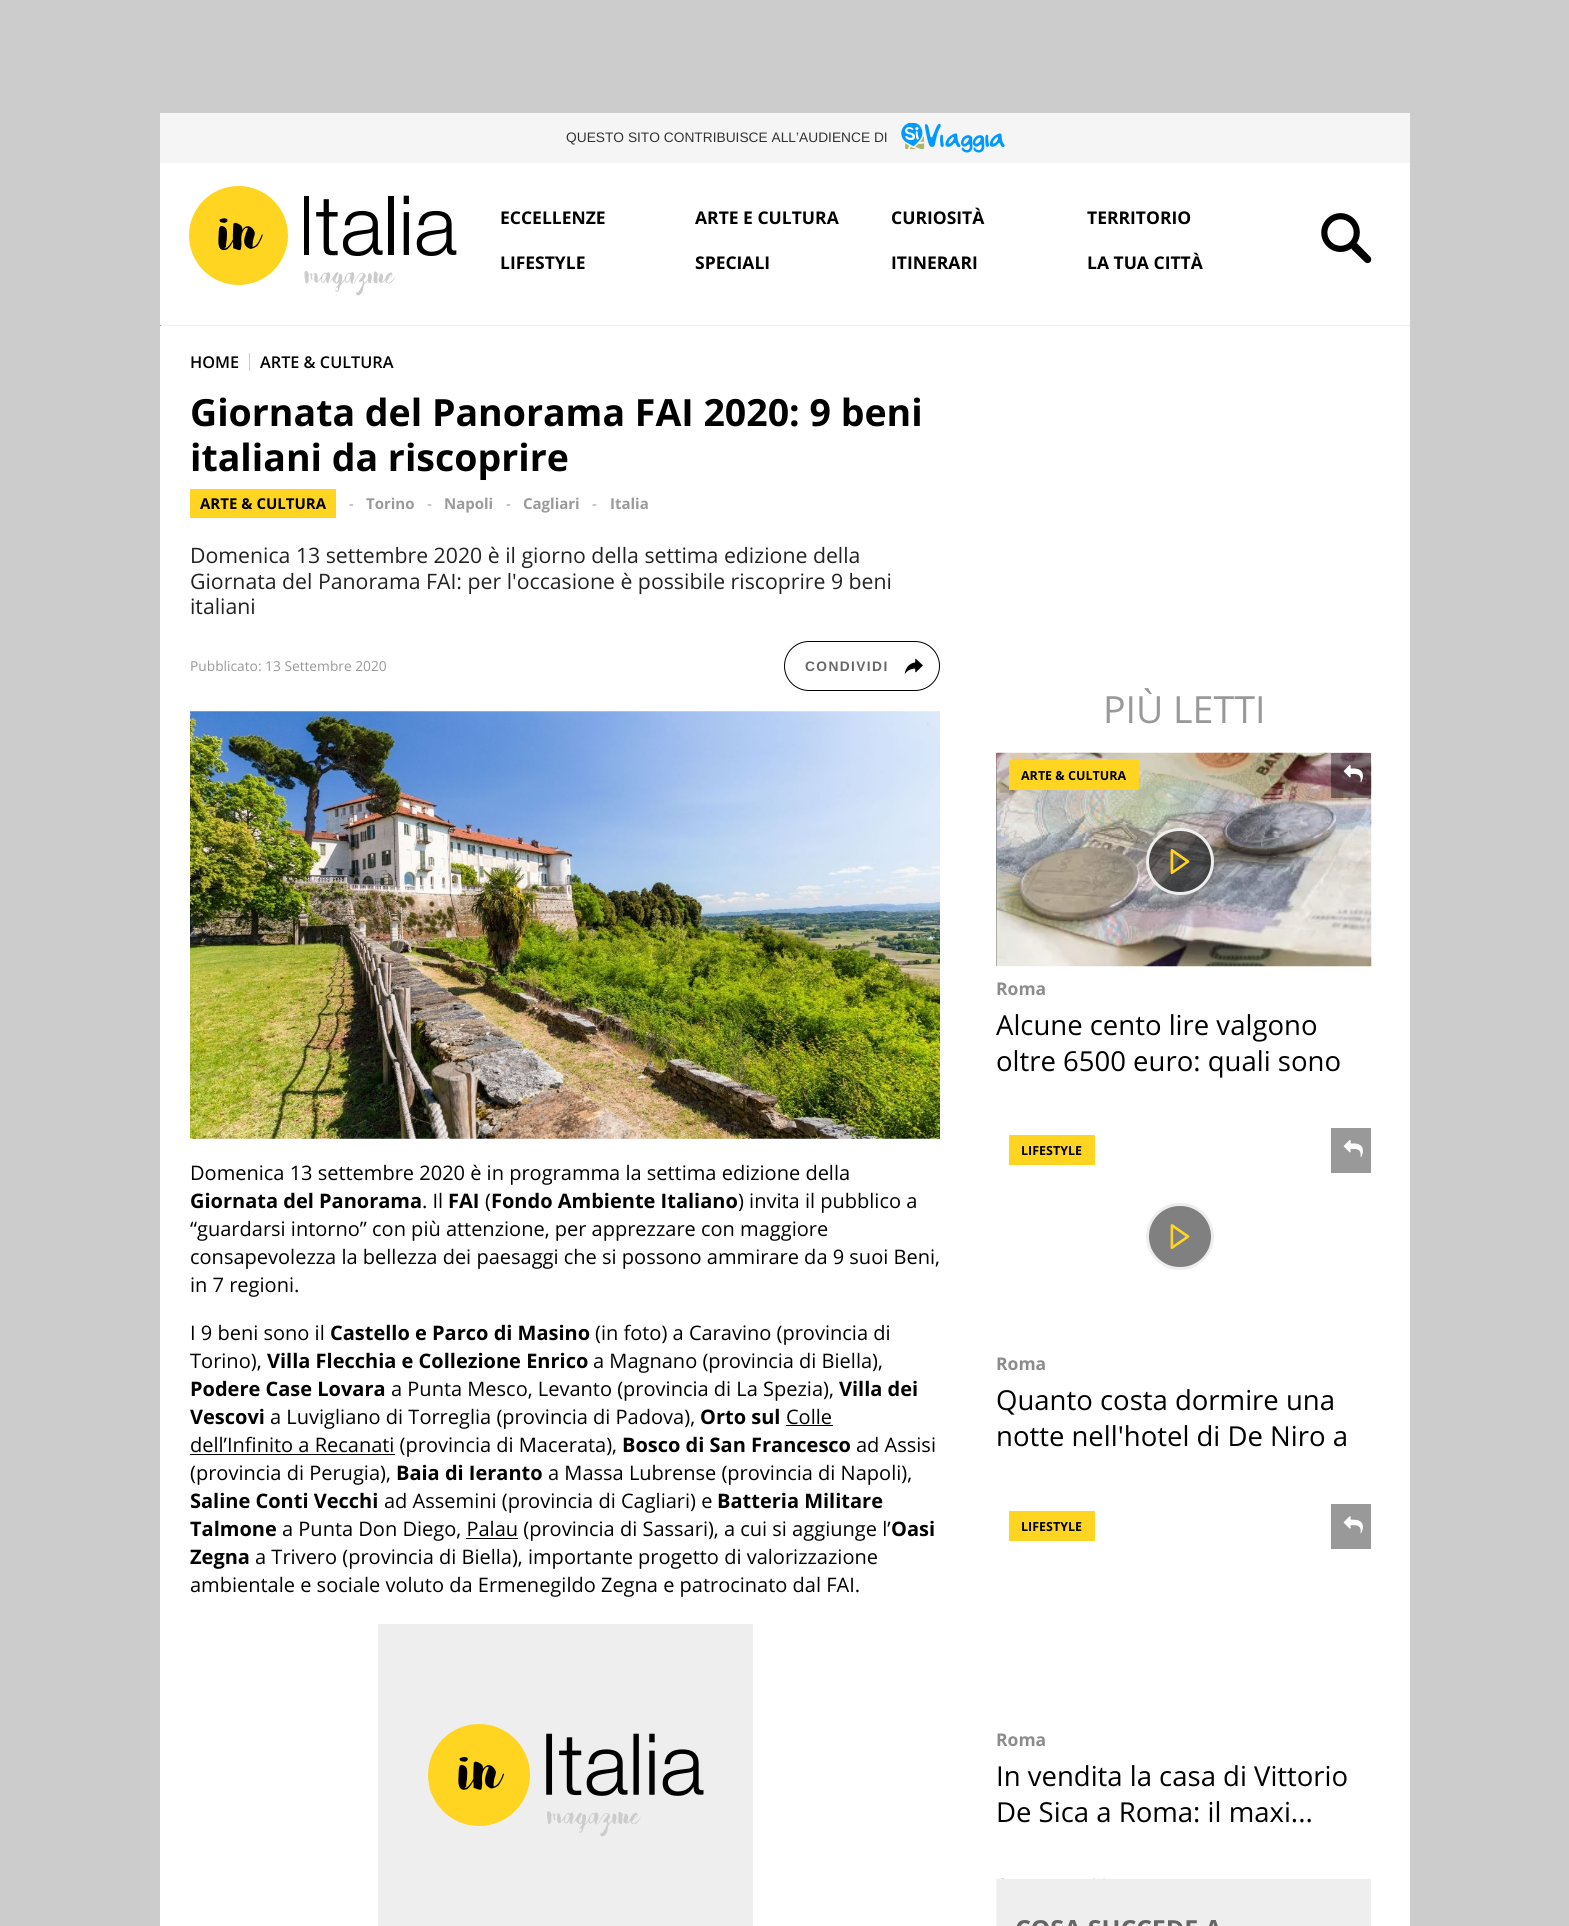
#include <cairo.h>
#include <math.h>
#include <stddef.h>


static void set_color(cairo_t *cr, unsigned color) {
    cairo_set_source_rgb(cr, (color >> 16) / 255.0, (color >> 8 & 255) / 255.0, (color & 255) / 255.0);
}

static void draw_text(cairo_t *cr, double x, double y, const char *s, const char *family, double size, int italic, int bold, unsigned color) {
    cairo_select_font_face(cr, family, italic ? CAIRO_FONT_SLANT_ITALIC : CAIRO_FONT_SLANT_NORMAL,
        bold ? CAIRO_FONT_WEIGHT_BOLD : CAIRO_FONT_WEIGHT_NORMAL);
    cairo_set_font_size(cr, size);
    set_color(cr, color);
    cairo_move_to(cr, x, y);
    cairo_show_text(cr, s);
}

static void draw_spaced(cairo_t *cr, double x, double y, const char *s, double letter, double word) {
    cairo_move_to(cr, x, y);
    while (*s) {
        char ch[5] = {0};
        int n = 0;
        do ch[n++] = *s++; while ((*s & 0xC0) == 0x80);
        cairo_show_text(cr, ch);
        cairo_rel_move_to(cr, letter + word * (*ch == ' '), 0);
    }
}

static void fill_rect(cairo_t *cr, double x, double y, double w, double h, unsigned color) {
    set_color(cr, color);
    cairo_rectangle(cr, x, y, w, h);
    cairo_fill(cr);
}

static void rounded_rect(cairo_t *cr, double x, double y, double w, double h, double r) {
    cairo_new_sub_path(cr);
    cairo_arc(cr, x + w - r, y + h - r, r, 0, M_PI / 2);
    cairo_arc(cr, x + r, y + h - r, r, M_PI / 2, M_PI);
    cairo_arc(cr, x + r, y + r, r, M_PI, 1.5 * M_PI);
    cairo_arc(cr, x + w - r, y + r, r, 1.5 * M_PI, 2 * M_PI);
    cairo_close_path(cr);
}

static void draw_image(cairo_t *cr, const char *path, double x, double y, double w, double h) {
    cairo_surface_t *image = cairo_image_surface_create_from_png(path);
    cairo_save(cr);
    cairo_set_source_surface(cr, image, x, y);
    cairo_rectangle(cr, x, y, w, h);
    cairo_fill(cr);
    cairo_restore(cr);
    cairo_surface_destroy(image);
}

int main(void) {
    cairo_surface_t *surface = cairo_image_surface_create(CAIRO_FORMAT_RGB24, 1569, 1926);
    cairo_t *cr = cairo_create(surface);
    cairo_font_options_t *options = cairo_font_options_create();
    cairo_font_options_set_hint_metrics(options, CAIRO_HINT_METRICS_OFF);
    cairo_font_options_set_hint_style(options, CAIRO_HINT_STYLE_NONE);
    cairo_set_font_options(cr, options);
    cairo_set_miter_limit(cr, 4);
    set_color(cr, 0xCCCCCC);
    cairo_paint(cr);
    fill_rect(cr, 160, 163, 1250, 1763, 0xFFFFFF);
    fill_rect(cr, 160, 113, 1250, 50, 0xF5F5F5);
    draw_text(cr, 566, 142, "QUESTO SITO CONTRIBUISCE ALL’AUDIENCE DI", "Liberation Sans", 13.75, 0, 0, 0x333333);
    draw_image(cr, "assets/img1.png", 901, 123, 104, 30);
    draw_image(cr, "assets/img2.png", 189, 186, 268, 110);
    draw_text(cr, 500, 224, "ECCELLENZE", "Open Sans", 17.5, 0, 1, 0x000000);
    draw_text(cr, 695, 224, "ARTE E CULTURA", "Open Sans", 17.5, 0, 1, 0x000000);
    draw_text(cr, 891, 224, "CURIOSITÀ", "Open Sans", 17.5, 0, 1, 0x000000);
    draw_text(cr, 1087, 224, "TERRITORIO", "Open Sans", 17.5, 0, 1, 0x000000);
    draw_text(cr, 500, 269, "LIFESTYLE", "Open Sans", 17.5, 0, 1, 0x000000);
    draw_text(cr, 695, 269, "SPECIALI", "Open Sans", 17.5, 0, 1, 0x000000);
    draw_text(cr, 891, 269, "ITINERARI", "Open Sans", 17.5, 0, 1, 0x000000);
    draw_text(cr, 1087, 269, "LA TUA CITTÀ", "Open Sans", 17.5, 0, 1, 0x000000);
    draw_image(cr, "assets/img3.png", 1321, 213, 51, 51);
    fill_rect(cr, 160, 325, 1250, 1, 0xEEEEEE);
    fill_rect(cr, 160, 325, 1, 1, 0x9F9F9F);
    draw_text(cr, 190, 368, "HOME", "Open Sans SemiBold", 16.25, 0, 0, 0x000000);
    fill_rect(cr, 249, 353, 1, 18, 0xFFD522);
    draw_text(cr, 260, 368, "ARTE & CULTURA", "Open Sans SemiBold", 16.25, 0, 0, 0x000000);
    draw_text(cr, 190, 426, "Giornata del Panorama FAI 2020: 9 beni", "Open Sans", 37.5, 0, 1, 0x000000);
    draw_text(cr, 190, 471, "italiani da riscoprire", "Open Sans", 37.5, 0, 1, 0x000000);
    fill_rect(cr, 190, 489, 146, 29, 0xFFD522);
    draw_text(cr, 200, 509, "ARTE & CULTURA", "Open Sans", 15, 0, 1, 0x000000);
    draw_text(cr, 349, 509, "-", "Open Sans", 15, 0, 0, 0x999999);
    draw_text(cr, 366, 509, "Torino", "Open Sans", 15, 0, 1, 0x999999);
    draw_text(cr, 427, 509, "-", "Open Sans", 15, 0, 0, 0x999999);
    draw_text(cr, 444, 509, "Napoli", "Open Sans", 15, 0, 1, 0x999999);
    draw_text(cr, 506, 509, "-", "Open Sans", 15, 0, 0, 0x999999);
    draw_text(cr, 523, 509, "Cagliari", "Open Sans", 15, 0, 1, 0x999999);
    draw_text(cr, 592, 509, "-", "Open Sans", 15, 0, 0, 0x999999);
    draw_text(cr, 610, 509, "Italia", "Open Sans", 15, 0, 1, 0x999999);
    draw_text(cr, 190, 563, "Domenica 13 settembre 2020 è il giorno della settima edizione della", "Open Sans", 21.25, 0, 0, 0x222222);
    draw_text(cr, 190, 589, "Giornata del Panorama FAI: per l'occasione è possibile riscoprire 9 beni", "Open Sans", 21.25, 0, 0, 0x222222);
    draw_text(cr, 190, 614, "italiani", "Open Sans", 21.25, 0, 0, 0x222222);
    draw_text(cr, 190, 671, "Pubblicato: 13 Settembre 2020", "Open Sans", 13.75, 0, 0, 0x999999);
    rounded_rect(cr, 784.5, 641.5, 155, 49, 24.5);
    set_color(cr, 0x000000);
    cairo_set_line_width(cr, 1);
    cairo_stroke(cr);
    cairo_select_font_face(cr, "Liberation Sans", CAIRO_FONT_SLANT_NORMAL, CAIRO_FONT_WEIGHT_BOLD);
    set_color(cr, 0x666666);
    draw_spaced(cr, 805, 671, "CONDIVIDI", 1.4, 0);
    draw_image(cr, "assets/img4.png", 904, 658, 19, 16);
    draw_image(cr, "assets/img5.png", 190, 711, 750, 428);
    draw_text(cr, 190, 1180, "Domenica 13 settembre 2020 è in programma la settima edizione della", "Open Sans", 20, 0, 0, 0x000000);
    draw_text(cr, 190, 1208, "Giornata del Panorama", "Open Sans", 20, 0, 1, 0x000000);
    draw_text(cr, 422, 1208, ". Il", "Open Sans", 20, 0, 0, 0x000000);
    draw_text(cr, 448, 1208, "FAI", "Open Sans", 20, 0, 1, 0x000000);
    draw_text(cr, 485, 1208, "(", "Open Sans", 20, 0, 0, 0x000000);
    draw_text(cr, 491, 1208, "Fondo Ambiente Italiano", "Open Sans", 20, 0, 1, 0x000000);
    draw_text(cr, 738, 1208, ") invita il pubblico a", "Open Sans", 20, 0, 0, 0x000000);
    draw_text(cr, 190, 1236, "“guardarsi intorno” con più attenzione, per apprezzare con maggiore", "Open Sans", 20, 0, 0, 0x000000);
    draw_text(cr, 190, 1264, "consapevolezza la bellezza dei paesaggi che si possono ammirare da 9 suoi Beni,", "Open Sans", 20, 0, 0, 0x000000);
    draw_text(cr, 190, 1292, "in 7 regioni.", "Open Sans", 20, 0, 0, 0x000000);
    draw_text(cr, 190, 1340, "I 9 beni sono il", "Open Sans", 20, 0, 0, 0x000000);
    draw_text(cr, 330, 1340, "Castello e Parco di Masino", "Open Sans", 20, 0, 1, 0x000000);
    draw_text(cr, 595, 1340, "(in foto) a Caravino (provincia di", "Open Sans", 20, 0, 0, 0x000000);
    draw_text(cr, 190, 1368, "Torino),", "Open Sans", 20, 0, 0, 0x000000);
    draw_text(cr, 267, 1368, "Villa Flecchia e Collezione Enrico", "Open Sans", 20, 0, 1, 0x000000);
    draw_text(cr, 593, 1368, "a Magnano (provincia di Biella),", "Open Sans", 20, 0, 0, 0x000000);
    draw_text(cr, 190, 1396, "Podere Case Lovara", "Open Sans", 20, 0, 1, 0x000000);
    draw_text(cr, 391, 1396, "a Punta Mesco, Levanto (provincia di La Spezia),", "Open Sans", 20, 0, 0, 0x000000);
    draw_text(cr, 839, 1396, "Villa dei", "Open Sans", 20, 0, 1, 0x000000);
    draw_text(cr, 190, 1424, "Vescovi", "Open Sans", 20, 0, 1, 0x000000);
    draw_text(cr, 270, 1424, "a Luvigliano di Torreglia (provincia di Padova),", "Open Sans", 20, 0, 0, 0x000000);
    draw_text(cr, 700, 1424, "Orto sul", "Open Sans", 20, 0, 1, 0x000000);
    draw_text(cr, 786, 1424, "Colle", "Open Sans", 20, 0, 0, 0x000000);
    fill_rect(cr, 786, 1425, 47, 1, 0x000000);
    fill_rect(cr, 190, 1454, 205, 1, 0x000000);
    draw_text(cr, 190, 1452, "dell’Infinito a Recanati (provincia di Macerata),", "Open Sans", 20, 0, 0, 0x000000);
    draw_text(cr, 622, 1452, "Bosco di San Francesco", "Open Sans", 20, 0, 1, 0x000000);
    draw_text(cr, 856, 1452, "ad Assisi", "Open Sans", 20, 0, 0, 0x000000);
    draw_text(cr, 190, 1480, "(provincia di Perugia),", "Open Sans", 20, 0, 0, 0x000000);
    draw_text(cr, 396, 1480, "Baia di Ieranto", "Open Sans", 20, 0, 1, 0x000000);
    draw_text(cr, 548, 1480, "a Massa Lubrense (provincia di Napoli),", "Open Sans", 20, 0, 0, 0x000000);
    draw_text(cr, 190, 1508, "Saline Conti Vecchi", "Open Sans", 20, 0, 1, 0x000000);
    draw_text(cr, 384, 1508, "ad Assemini (provincia di Cagliari) e", "Open Sans", 20, 0, 0, 0x000000);
    draw_text(cr, 717, 1508, "Batteria Militare", "Open Sans", 20, 0, 1, 0x000000);
    draw_text(cr, 190, 1536, "Talmone", "Open Sans", 20, 0, 1, 0x000000);
    draw_text(cr, 282, 1536, "a Punta Don Diego, Palau (provincia di Sassari), a cui si aggiunge l’", "Open Sans", 20, 0, 0, 0x000000);
    draw_text(cr, 891, 1536, "Oasi", "Open Sans", 20, 0, 1, 0x000000);
    fill_rect(cr, 466, 1538, 52, 1, 0x000000);
    draw_text(cr, 190, 1564, "Zegna", "Open Sans", 20, 0, 1, 0x000000);
    draw_text(cr, 255, 1564, "a Trivero (provincia di Biella), importante progetto di valorizzazione", "Open Sans", 20, 0, 0, 0x000000);
    draw_text(cr, 190, 1592, "ambientale e sociale voluto da Ermenegildo Zegna e patrocinato dal FAI.", "Open Sans", 20, 0, 0, 0x000000);
    fill_rect(cr, 378, 1624, 375, 302, 0xEEEEEE);
    draw_image(cr, "assets/img6.png", 428, 1724, 276, 113);
    draw_text(cr, 1103, 723, "PIÙ LETTI", "Open Sans", 37.5, 0, 0, 0x999999);
    fill_rect(cr, 996, 753, 1, 213, 0x666666);
    draw_image(cr, "assets/img7.png", 996, 752, 376, 215);
    cairo_set_source_rgba(cr, 0, 0, 0, 0.5);
    rounded_rect(cr, 1147.5, 829.5, 65, 64, 32);
    cairo_fill_preserve(cr);
    set_color(cr, 0xEEEEEE);
    cairo_set_line_width(cr, 3);
    cairo_stroke(cr);
    draw_image(cr, "assets/img8.png", 1170, 849, 20, 26);
    fill_rect(cr, 1009, 760, 130, 30, 0xFFD522);
    draw_text(cr, 1021, 780, "ARTE & CULTURA", "Open Sans", 12.5, 0, 1, 0x000000);
    cairo_set_source_rgba(cr, 0, 0, 0, 0.4);
    cairo_rectangle(cr, 1331, 753, 40, 45);
    cairo_fill(cr);
    draw_image(cr, "assets/img9.png", 1343, 765, 20, 18);
    draw_text(cr, 996, 995, "Roma", "Open Sans", 17.5, 0, 1, 0x8C8C8C);
    draw_text(cr, 996, 1035, "Alcune cento lire valgono", "Open Sans", 27.5, 0, 0, 0x000000);
    draw_text(cr, 996, 1071, "oltre 6500 euro: quali sono", "Open Sans", 27.5, 0, 0, 0x000000);
    fill_rect(cr, 1009, 1135, 86, 30, 0xFFD522);
    draw_text(cr, 1021, 1155, "LIFESTYLE", "Open Sans", 12.5, 0, 1, 0x000000);
    fill_rect(cr, 1331, 1128, 40, 45, 0x999999);
    draw_image(cr, "assets/img10.png", 1343, 1140, 20, 18);
    set_color(cr, 0x808080);
    rounded_rect(cr, 1147.5, 1204.5, 65, 64, 32);
    cairo_fill_preserve(cr);
    set_color(cr, 0xEEEEEE);
    cairo_stroke(cr);
    draw_image(cr, "assets/img11.png", 1170, 1224, 20, 25);
    draw_text(cr, 996, 1370, "Roma", "Open Sans", 17.5, 0, 1, 0x8C8C8C);
    draw_text(cr, 996, 1410, "Quanto costa dormire una", "Open Sans", 27.5, 0, 0, 0x000000);
    draw_text(cr, 996, 1446, "notte nell'hotel di De Niro a", "Open Sans", 27.5, 0, 0, 0x000000);
    fill_rect(cr, 1009, 1511, 86, 30, 0xFFD522);
    draw_text(cr, 1021, 1531, "LIFESTYLE", "Open Sans", 12.5, 0, 1, 0x000000);
    fill_rect(cr, 1331, 1504, 40, 45, 0x999999);
    draw_image(cr, "assets/img12.png", 1343, 1516, 20, 18);
    draw_text(cr, 996, 1746, "Roma", "Open Sans", 17.5, 0, 1, 0x8C8C8C);
    draw_text(cr, 996, 1786, "In vendita la casa di Vittorio", "Open Sans", 27.5, 0, 0, 0x000000);
    draw_text(cr, 996, 1822, "De Sica a Roma: il maxi...", "Open Sans", 27.5, 0, 0, 0x000000);
    draw_image(cr, "assets/img13.png", 996, 1878, 375, 48);
    cairo_surface_write_to_png(surface, "output.png");
    cairo_font_options_destroy(options);
    cairo_destroy(cr);
    cairo_surface_destroy(surface);
    return 0;
}
